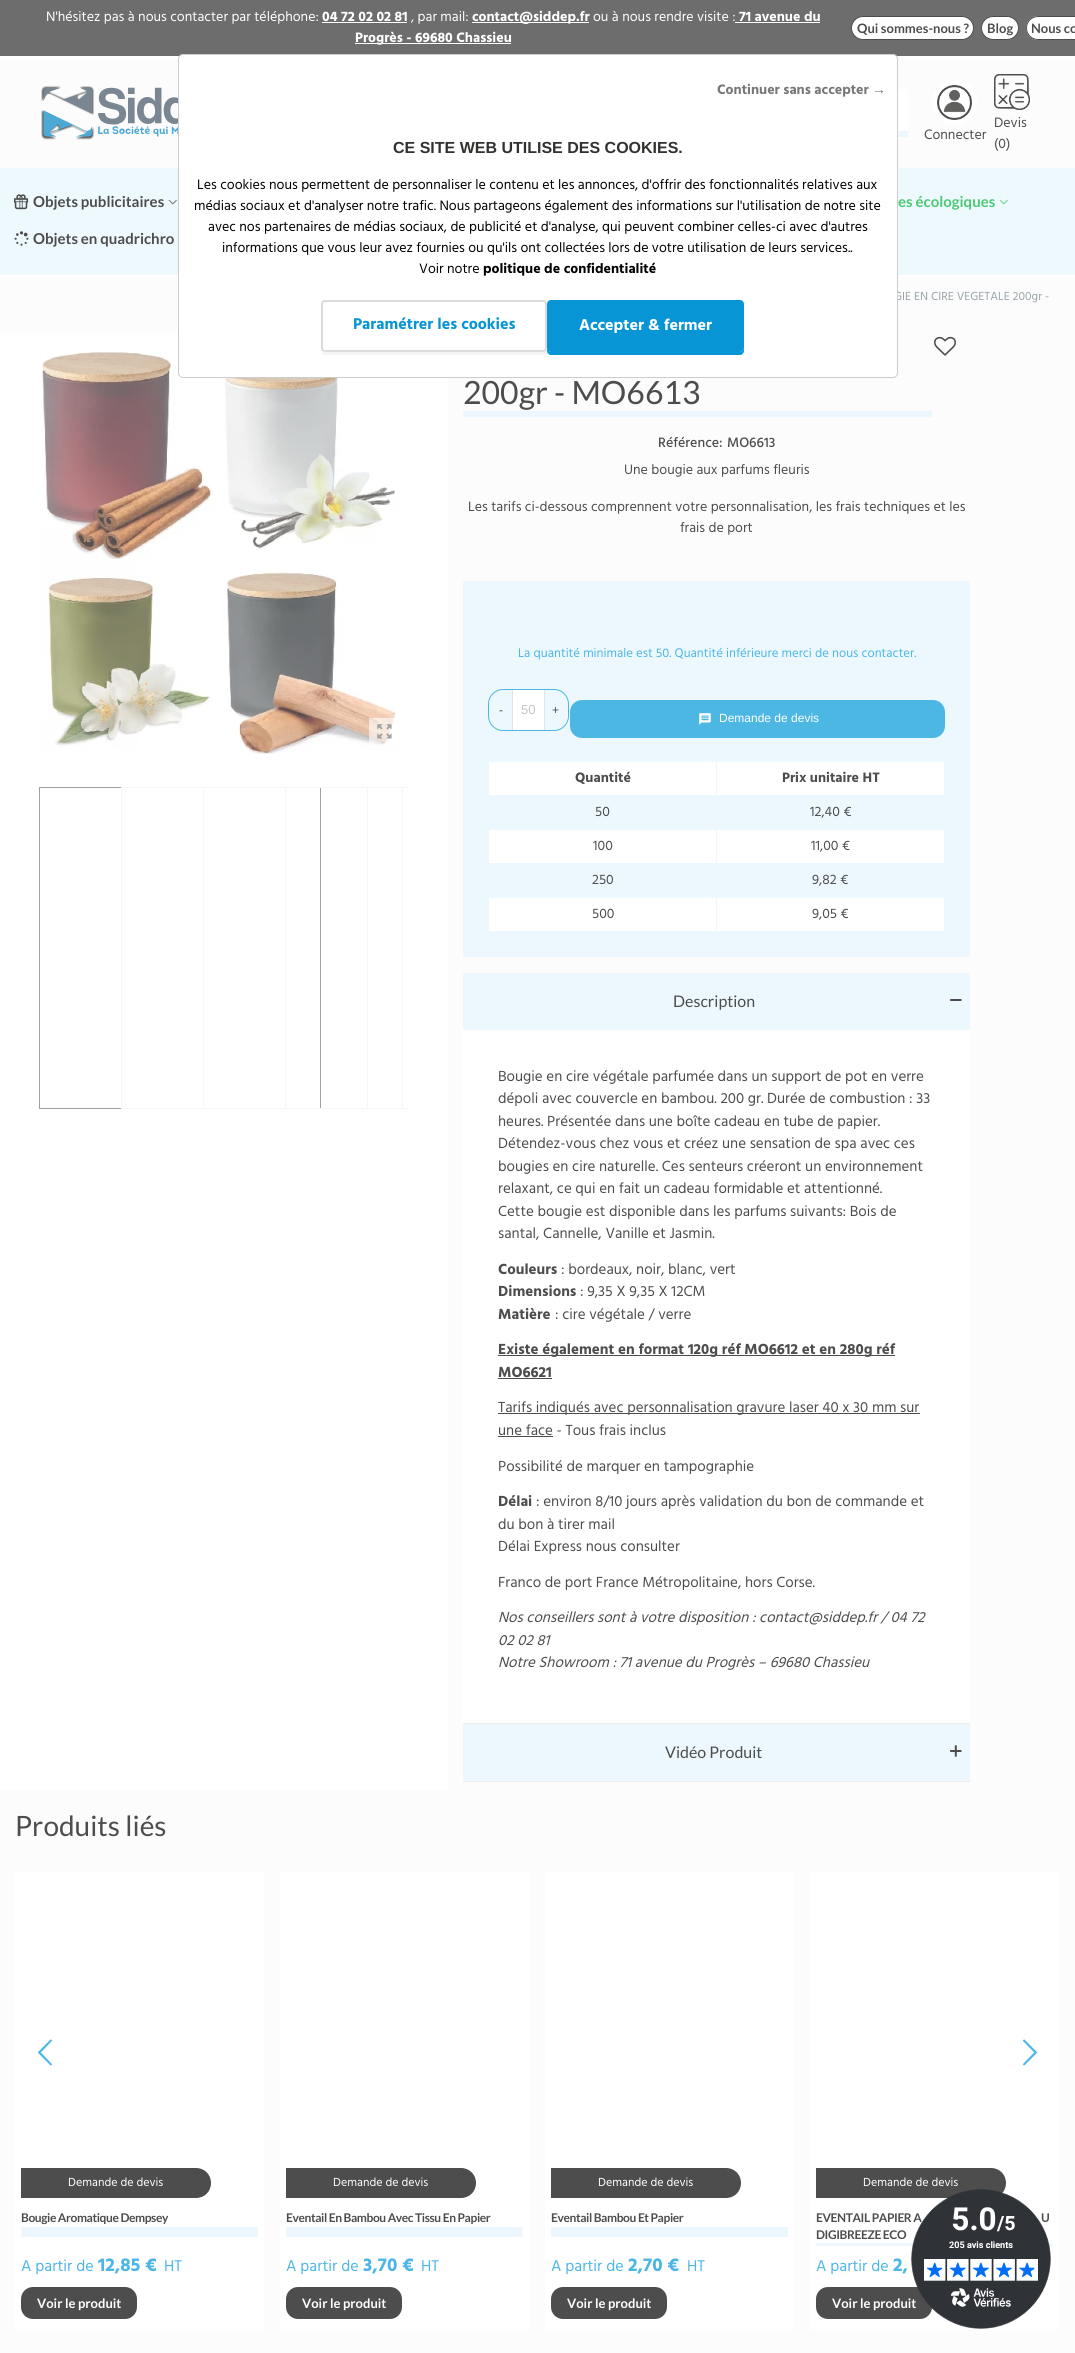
#include <cairo.h>
#include <math.h>
#include <stddef.h>


static void set_color(cairo_t *cr, unsigned color) {
    cairo_set_source_rgb(cr, (color >> 16) / 255.0, (color >> 8 & 255) / 255.0, (color & 255) / 255.0);
}

static void draw_text(cairo_t *cr, double x, double y, const char *s, const char *family, double size, int italic, int bold, unsigned color) {
    cairo_select_font_face(cr, family, italic ? CAIRO_FONT_SLANT_ITALIC : CAIRO_FONT_SLANT_NORMAL,
        bold ? CAIRO_FONT_WEIGHT_BOLD : CAIRO_FONT_WEIGHT_NORMAL);
    cairo_set_font_size(cr, size);
    set_color(cr, color);
    cairo_move_to(cr, x, y);
    cairo_show_text(cr, s);
}

static void draw_spaced(cairo_t *cr, double x, double y, const char *s, double letter, double word) {
    cairo_move_to(cr, x, y);
    while (*s) {
        char ch[5] = {0};
        int n = 0;
        do ch[n++] = *s++; while ((*s & 0xC0) == 0x80);
        cairo_show_text(cr, ch);
        cairo_rel_move_to(cr, letter + word * (*ch == ' '), 0);
    }
}

static void fill_rect(cairo_t *cr, double x, double y, double w, double h, unsigned color) {
    set_color(cr, color);
    cairo_rectangle(cr, x, y, w, h);
    cairo_fill(cr);
}

static void rounded_rect(cairo_t *cr, double x, double y, double w, double h, double r) {
    cairo_new_sub_path(cr);
    cairo_arc(cr, x + w - r, y + h - r, r, 0, M_PI / 2);
    cairo_arc(cr, x + r, y + h - r, r, M_PI / 2, M_PI);
    cairo_arc(cr, x + r, y + r, r, M_PI, 1.5 * M_PI);
    cairo_arc(cr, x + w - r, y + r, r, 1.5 * M_PI, 2 * M_PI);
    cairo_close_path(cr);
}

static void draw_image(cairo_t *cr, const char *path, double x, double y, double w, double h) {
    cairo_surface_t *image = cairo_image_surface_create_from_png(path);
    cairo_save(cr);
    cairo_set_source_surface(cr, image, x, y);
    cairo_rectangle(cr, x, y, w, h);
    cairo_fill(cr);
    cairo_restore(cr);
    cairo_surface_destroy(image);
}

int main(void) {
    cairo_surface_t *surface = cairo_image_surface_create(CAIRO_FORMAT_RGB24, 1075, 2353);
    cairo_t *cr = cairo_create(surface);
    cairo_font_options_t *options = cairo_font_options_create();
    cairo_font_options_set_hint_metrics(options, CAIRO_HINT_METRICS_OFF);
    cairo_font_options_set_hint_style(options, CAIRO_HINT_STYLE_NONE);
    cairo_set_font_options(cr, options);
    cairo_set_miter_limit(cr, 4);
    set_color(cr, 0xFCFCFC);
    cairo_paint(cr);
    fill_rect(cr, 0, 0, 1075, 56, 0x6D6D6D);
    fill_rect(cr, 0, 56, 1075, 1, 0xFFFFFF);
    draw_text(cr, 46, 21, "N'hésitez pas à nous contacter par téléphone:", "Hind", 14, 0, 0, 0xFFFFFF);
    draw_text(cr, 322, 21, "04 72 02 02 81", "Hind", 14, 0, 1, 0xFFFFFF);
    fill_rect(cr, 322, 22, 85, 1, 0xFFFFFF);
    draw_text(cr, 411, 21, ", par mail:", "Hind", 14, 0, 0, 0xFFFFFF);
    fill_rect(cr, 472, 22, 117, 1, 0xFFFFFF);
    draw_text(cr, 472, 21, "contact@siddep.fr", "Hind", 14, 0, 1, 0xFFFFFF);
    draw_text(cr, 593, 21, "ou à nous rendre visite :", "Hind", 14, 0, 0, 0xFFFFFF);
    draw_text(cr, 739, 21, "71 avenue du", "Hind", 14, 0, 1, 0xFFFFFF);
    fill_rect(cr, 735, 22, 85, 1, 0xFFFFFF);
    fill_rect(cr, 355, 43, 156, 1, 0xFFFFFF);
    draw_text(cr, 355, 42, "Progrès - 69680 Chassieu", "Hind", 14, 0, 1, 0xFFFFFF);
    rounded_rect(cr, 851.5, 16.5, 122, 23, 11.5);
    cairo_fill_preserve(cr);
    set_color(cr, 0x4D4D4D);
    cairo_set_line_width(cr, 1);
    cairo_stroke(cr);
    draw_text(cr, 857, 33, "Qui sommes-nous ?", "Lato", 13, 0, 1, 0x4D4D4D);
    set_color(cr, 0xFFFFFF);
    rounded_rect(cr, 981.5, 16.5, 37, 23, 11.5);
    cairo_fill_preserve(cr);
    set_color(cr, 0x4D4D4D);
    cairo_stroke(cr);
    draw_text(cr, 987, 33, "Blog", "Lato", 13, 0, 1, 0x4D4D4D);
    set_color(cr, 0xFFFFFF);
    cairo_new_path(cr);
    cairo_move_to(cr, 1038, 16);
    cairo_line_to(cr, 1075, 16);
    cairo_line_to(cr, 1075, 40);
    cairo_line_to(cr, 1038, 40);
    cairo_curve_to(cr, 1031.5, 40, 1026, 34.5, 1026, 28);
    cairo_curve_to(cr, 1026, 21.5, 1031.5, 16, 1038, 16);
    cairo_close_path(cr);
    cairo_fill(cr);
    rounded_rect(cr, 1026.5, 16.5, 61, 23, 11.5);
    set_color(cr, 0x4D4D4D);
    cairo_stroke(cr);
    draw_text(cr, 1031, 33, "Nous co", "Lato", 13, 0, 1, 0x4D4D4D);
    draw_image(cr, "assets/img1.png", 41, 85, 137, 55);
    fill_rect(cr, 898, 89, 10, 42, 0xFFFFFF);
    fill_rect(cr, 898, 131, 10, 6, 0xECF8FD);
    set_color(cr, 0xFFFFFF);
    cairo_arc(cr, 954.5, 102.5, 22.5, 0, 2 * M_PI);
    cairo_fill(cr);
    draw_image(cr, "assets/img2.png", 937, 85, 35, 35);
    draw_text(cr, 924, 139, "Connecter", "Hind", 14, 0, 0, 0x4D4D4D);
    draw_image(cr, "assets/img3.png", 994, 74, 36, 36);
    draw_text(cr, 994, 127, "Devis", "Hind", 14, 0, 0, 0x4D4D4D);
    draw_text(cr, 994, 148, "(0)", "Hind", 14, 0, 0, 0x4D4D4D);
    fill_rect(cr, 0, 168, 1075, 107, 0xEEF9FE);
    fill_rect(cr, 0, 275, 1075, 2, 0xFFFFFF);
    draw_image(cr, "assets/img4.png", 14, 194, 15, 16);
    draw_text(cr, 33, 207, "Objets publicitaires", "Lato", 15, 0, 1, 0x4D4D4D);
    draw_image(cr, "assets/img5.png", 168, 199, 9, 6);
    draw_text(cr, 898, 207, "es écologiques", "Lato", 15, 0, 1, 0x4DC874);
    draw_image(cr, "assets/img6.png", 999, 199, 9, 6);
    draw_image(cr, "assets/img7.png", 14, 231, 15, 15);
    draw_text(cr, 33, 244, "Objets en quadrichro", "Lato", 15, 0, 1, 0x4D4D4D);
    draw_text(cr, 894, 300, "GIE EN CIRE VEGETALE 200gr -", "Hind", 12, 0, 0, 0x99A3A8);
    fill_rect(cr, 0, 335, 448, 1455, 0xFFFFFF);
    draw_image(cr, "assets/img8.png", 40, 351, 359, 404);
    cairo_set_source_rgba(cr, 1, 1, 1, 0.6);
    cairo_rectangle(cr, 369, 718, 27, 29);
    cairo_fill(cr);
    draw_image(cr, "assets/img9.png", 377, 724, 15, 15);
    cairo_rectangle(cr, 39.5, 787.5, 281, 321);
    set_color(cr, 0xA0A0A0);
    cairo_stroke(cr);
    cairo_rectangle(cr, 121.5, 787.5, 281, 321);
    set_color(cr, 0xF6F6F6);
    cairo_stroke(cr);
    fill_rect(cr, 463, 581, 507, 376, 0xECF8FD);
    fill_rect(cr, 463, 973, 507, 57, 0xECF8FD);
    fill_rect(cr, 463, 1030, 507, 693, 0xFFFFFF);
    cairo_save(cr);
    cairo_rectangle(cr, 39, 774, 370, 335);
    cairo_clip(cr);
    cairo_rectangle(cr, 203.5, 787.5, 281, 321);
    set_color(cr, 0xF6F6F6);
    cairo_stroke(cr);
    cairo_restore(cr);
    fill_rect(cr, 489, 762, 227, 33, 0xFFFFFF);
    fill_rect(cr, 489, 830, 455, 33, 0xFFFFFF);
    fill_rect(cr, 489, 898, 455, 33, 0xFFFFFF);
    draw_text(cr, 498, 1081, "Bougie en cire végétale parfumée dans un support de pot en verre", "Hind", 15, 0, 0, 0x4D4D4D);
    draw_text(cr, 498, 1103, "dépoli avec couvercle en bambou. 200 gr. Durée de combustion : 33", "Hind", 15, 0, 0, 0x4D4D4D);
    cairo_save(cr);
    cairo_rectangle(cr, 39, 774, 370, 335);
    cairo_clip(cr);
    cairo_rectangle(cr, 285.5, 787.5, 281, 321);
    set_color(cr, 0xF6F6F6);
    cairo_stroke(cr);
    cairo_rectangle(cr, 367.5, 787.5, 281, 321);
    cairo_stroke(cr);
    cairo_restore(cr);
    draw_image(cr, "assets/img10.png", 934, 336, 22, 20);
    fill_rect(cr, 463, 411, 469, 6, 0xECF8FD);
    draw_text(cr, 463, 404, "200gr - MO6613", "Lato", 32, 0, 0, 0x4D4D4D);
    draw_text(cr, 658, 447, "Référence:", "Hind Medium", 14, 0, 0, 0x4D4D4D);
    draw_text(cr, 727, 447, "MO6613", "Hind Medium", 14, 0, 0, 0x4D4D4D);
    draw_text(cr, 624, 474, "Une bougie aux parfums fleuris", "Hind", 14, 0, 0, 0x4D4D4D);
    draw_text(cr, 468, 511, "Les tarifs ci-dessous comprennent votre personnalisation, les frais techniques et les", "Hind", 14, 0, 0, 0x4D4D4D);
    draw_text(cr, 680, 532, "frais de port", "Hind", 14, 0, 0, 0x4D4D4D);
    draw_text(cr, 518, 657, "La quantité minimale est 50. Quantité inférieure merci de nous contacter.", "Hind", 12.8, 0, 0, 0x4DB6E7);
    rounded_rect(cr, 488.5, 689.5, 80, 41, 14.5);
    set_color(cr, 0x4DB7E4);
    cairo_stroke(cr);
    draw_text(cr, 499, 714, "-", "Liberation Sans", 12, 0, 0, 0x4D4D4D);
    fill_rect(cr, 513, 690, 31, 40, 0xFFFFFF);
    fill_rect(cr, 544, 690, 1, 40, 0xE4E4E4);
    fill_rect(cr, 512, 690, 1, 40, 0xE4E4E4);
    draw_text(cr, 521, 714, "50", "Liberation Sans", 13, 0, 0, 0xC5C4C1);
    draw_text(cr, 552, 714, "+", "Liberation Sans", 12, 0, 0, 0x4D4D4D);
    set_color(cr, 0x4DB7E4);
    rounded_rect(cr, 571.5, 701.5, 372, 35, 10.5);
    cairo_fill_preserve(cr);
    cairo_set_line_width(cr, 3);
    cairo_stroke(cr);
    draw_image(cr, "assets/img11.png", 699, 713, 12, 12);
    draw_text(cr, 719, 722, "Demande de devis", "Liberation Sans", 12, 0, 0, 0xFFFFFF);
    draw_text(cr, 575, 782, "Quantité", "Hind", 14, 0, 1, 0x4D4D4D);
    fill_rect(cr, 717, 762, 227, 33, 0xFFFFFF);
    draw_text(cr, 782, 782, "Prix unitaire HT", "Hind", 14, 0, 1, 0x4D4D4D);
    draw_text(cr, 595, 816, "50", "Hind", 14, 0, 0, 0x4D4D4D);
    draw_text(cr, 810, 816, "12,40 €", "Hind", 14, 0, 0, 0x4D4D4D);
    draw_text(cr, 593, 850, "100", "Hind", 14, 0, 0, 0x4D4D4D);
    fill_rect(cr, 716, 829, 1, 35, 0xECF8FD);
    draw_text(cr, 811, 850, "11,00 €", "Hind", 14, 0, 0, 0x4D4D4D);
    draw_text(cr, 592, 884, "250", "Hind", 14, 0, 0, 0x4D4D4D);
    draw_text(cr, 812, 884, "9,82 €", "Hind", 14, 0, 0, 0x4D4D4D);
    draw_text(cr, 592, 918, "500", "Hind", 14, 0, 0, 0x4D4D4D);
    fill_rect(cr, 716, 897, 1, 35, 0xECF8FD);
    draw_text(cr, 812, 918, "9,05 €", "Hind", 14, 0, 0, 0x4D4D4D);
    fill_rect(cr, 463, 1723, 507, 1, 0xEDEDED);
    draw_text(cr, 673, 1007, "Description", "Lato", 16, 0, 0, 0x4D4D4D);
    draw_image(cr, "assets/img12.png", 950, 999, 12, 2);
    draw_text(cr, 498, 1126, "heures. Présentée dans une boîte cadeau en tube de papier.", "Hind", 15, 0, 0, 0x4D4D4D);
    draw_text(cr, 498, 1148, "Détendez-vous chez vous et créez une sensation de spa avec ces", "Hind", 15, 0, 0, 0x4D4D4D);
    draw_text(cr, 498, 1171, "bougies en cire naturelle. Ces senteurs créeront un environnement", "Hind", 15, 0, 0, 0x4D4D4D);
    draw_text(cr, 498, 1193, "relaxant, ce qui en fait un cadeau formidable et attentionné.", "Hind", 15, 0, 0, 0x4D4D4D);
    draw_text(cr, 498, 1216, "Cette bougie est disponible dans les parfums suivants: Bois de", "Hind", 15, 0, 0, 0x4D4D4D);
    draw_text(cr, 498, 1238, "santal, Cannelle, Vanille et Jasmin.", "Hind", 15, 0, 0, 0x4D4D4D);
    draw_text(cr, 498, 1274, "Couleurs", "Hind", 15, 0, 1, 0x4D4D4D);
    draw_text(cr, 561, 1274, ": bordeaux, noir, blanc, vert", "Hind", 15, 0, 0, 0x4D4D4D);
    draw_text(cr, 498, 1296, "Dimensions", "Hind", 15, 0, 1, 0x4D4D4D);
    draw_text(cr, 580, 1296, ": 9,35 X 9,35 X 12CM", "Hind", 15, 0, 0, 0x4D4D4D);
    draw_text(cr, 498, 1319, "Matière", "Hind", 15, 0, 1, 0x4D4D4D);
    draw_text(cr, 555, 1319, ": cire végétale / verre", "Hind", 15, 0, 0, 0x4D4D4D);
    fill_rect(cr, 498, 1355, 397, 1, 0x4D4D4D);
    draw_text(cr, 498, 1354, "Existe également en format 120g réf MO6612 et en 280g réf", "Hind", 15, 0, 1, 0x4D4D4D);
    draw_text(cr, 498, 1377, "MO6621", "Hind", 15, 0, 1, 0x4D4D4D);
    fill_rect(cr, 498, 1378, 54, 1, 0x4D4D4D);
    fill_rect(cr, 498, 1413, 422, 1, 0x4D4D4D);
    draw_text(cr, 498, 1412, "Tarifs indiqués avec personnalisation gravure laser 40 x 30 mm sur", "Hind", 15, 0, 0, 0x4D4D4D);
    draw_text(cr, 498, 1435, "une face - Tous frais inclus", "Hind", 15, 0, 0, 0x4D4D4D);
    fill_rect(cr, 498, 1436, 55, 1, 0x4D4D4D);
    draw_text(cr, 498, 1471, "Possibilité de marquer en tampographie", "Hind", 15, 0, 0, 0x4D4D4D);
    draw_text(cr, 498, 1506, "Délai", "Hind", 15, 0, 1, 0x4D4D4D);
    draw_text(cr, 536, 1506, ": environ 8/10 jours après validation du bon de commande et", "Hind", 15, 0, 0, 0x4D4D4D);
    draw_text(cr, 498, 1529, "du bon à tirer mail", "Hind", 15, 0, 0, 0x4D4D4D);
    draw_text(cr, 498, 1551, "Délai Express nous consulter", "Hind", 15, 0, 0, 0x4D4D4D);
    draw_text(cr, 498, 1587, "Franco de port France Métropolitaine, hors Corse.", "Hind", 15, 0, 0, 0x4D4D4D);
    draw_text(cr, 498, 1622, "Nos conseillers sont à votre disposition : contact@siddep.fr / 04 72", "Hind", 15, 1, 0, 0x4D4D4D);
    draw_text(cr, 498, 1645, "02 02 81", "Hind", 15, 1, 0, 0x4D4D4D);
    draw_text(cr, 498, 1667, "Notre Showroom : 71 avenue du Progrès – 69680 Chassieu", "Hind", 15, 1, 0, 0x4D4D4D);
    fill_rect(cr, 463, 1781, 507, 1, 0xEDEDED);
    fill_rect(cr, 463, 1724, 507, 57, 0xECF8FD);
    draw_text(cr, 665, 1758, "Vidéo Produit", "Lato", 16, 0, 0, 0x4D4D4D);
    draw_image(cr, "assets/img13.png", 950, 1745, 12, 12);
    draw_text(cr, 15, 1836, "Produits liés", "Lato", 28, 0, 0, 0x4D4D4D);
    fill_rect(cr, 15, 1872, 249, 457, 0xFFFFFF);
    draw_image(cr, "assets/img14.png", 38, 2039, 14, 27);
    fill_rect(cr, 810, 1872, 249, 457, 0xFFFFFF);
    draw_image(cr, "assets/img15.png", 1023, 2039, 14, 27);
    set_color(cr, 0x4D4D4D);
    cairo_new_path(cr);
    cairo_move_to(cr, 21, 2168);
    cairo_line_to(cr, 196, 2168);
    cairo_curve_to(cr, 204.5, 2168, 211, 2174.5, 211, 2183);
    cairo_curve_to(cr, 211, 2191.5, 204.5, 2198, 196, 2198);
    cairo_line_to(cr, 21, 2198);
    cairo_close_path(cr);
    cairo_fill(cr);
    draw_text(cr, 68, 2186, "Demande de devis", "Hind", 12, 0, 0, 0xFFFFFF);
    fill_rect(cr, 21, 2227, 237, 10, 0xECF8FD);
    cairo_select_font_face(cr, "Lato", CAIRO_FONT_SLANT_NORMAL, CAIRO_FONT_WEIGHT_BOLD);
    set_color(cr, 0x4D4D4D);
    draw_spaced(cr, 21, 2222, "Bougie Aromatique Dempsey", -0.4, 0);
    draw_text(cr, 21, 2271, "A partir de", "Hind", 16, 0, 0, 0x4DB6E7);
    draw_text(cr, 98, 2271, "12,85 €", "Hind", 19, 0, 1, 0x4DB6E7);
    draw_text(cr, 164, 2271, "HT", "Hind", 16, 0, 0, 0x4DB6E7);
    set_color(cr, 0x4D4D4D);
    rounded_rect(cr, 21, 2287, 116, 32, 12);
    cairo_fill(cr);
    draw_text(cr, 37, 2308, "Voir le produit", "Lato", 13, 0, 1, 0xFFFFFF);
    fill_rect(cr, 280, 1872, 249, 457, 0xFFFFFF);
    set_color(cr, 0x4D4D4D);
    cairo_new_path(cr);
    cairo_move_to(cr, 286, 2168);
    cairo_line_to(cr, 461, 2168);
    cairo_curve_to(cr, 469.5, 2168, 476, 2174.5, 476, 2183);
    cairo_curve_to(cr, 476, 2191.5, 469.5, 2198, 461, 2198);
    cairo_line_to(cr, 286, 2198);
    cairo_close_path(cr);
    cairo_fill(cr);
    draw_text(cr, 333, 2186, "Demande de devis", "Hind", 12, 0, 0, 0xFFFFFF);
    fill_rect(cr, 286, 2227, 237, 10, 0xECF8FD);
    cairo_select_font_face(cr, "Lato", CAIRO_FONT_SLANT_NORMAL, CAIRO_FONT_WEIGHT_BOLD);
    set_color(cr, 0x4D4D4D);
    draw_spaced(cr, 286, 2222, "Eventail En Bambou Avec Tissu En Papier", -0.4, 0);
    draw_text(cr, 286, 2271, "A partir de", "Hind", 16, 0, 0, 0x4DB6E7);
    draw_text(cr, 363, 2271, "3,70 €", "Hind", 19, 0, 1, 0x4DB6E7);
    draw_text(cr, 421, 2271, "HT", "Hind", 16, 0, 0, 0x4DB6E7);
    set_color(cr, 0x4D4D4D);
    rounded_rect(cr, 286, 2287, 116, 32, 12);
    cairo_fill(cr);
    draw_text(cr, 302, 2308, "Voir le produit", "Lato", 13, 0, 1, 0xFFFFFF);
    fill_rect(cr, 545, 1872, 249, 457, 0xFFFFFF);
    set_color(cr, 0x4D4D4D);
    cairo_new_path(cr);
    cairo_move_to(cr, 551, 2168);
    cairo_line_to(cr, 726, 2168);
    cairo_curve_to(cr, 734.5, 2168, 741, 2174.5, 741, 2183);
    cairo_curve_to(cr, 741, 2191.5, 734.5, 2198, 726, 2198);
    cairo_line_to(cr, 551, 2198);
    cairo_close_path(cr);
    cairo_fill(cr);
    draw_text(cr, 598, 2186, "Demande de devis", "Hind", 12, 0, 0, 0xFFFFFF);
    fill_rect(cr, 551, 2227, 237, 10, 0xECF8FD);
    cairo_select_font_face(cr, "Lato", CAIRO_FONT_SLANT_NORMAL, CAIRO_FONT_WEIGHT_BOLD);
    set_color(cr, 0x4D4D4D);
    draw_spaced(cr, 551, 2222, "Eventail Bambou Et Papier", -0.4, 0);
    draw_text(cr, 551, 2271, "A partir de", "Hind", 16, 0, 0, 0x4DB6E7);
    draw_text(cr, 628, 2271, "2,70 €", "Hind", 19, 0, 1, 0x4DB6E7);
    draw_text(cr, 687, 2271, "HT", "Hind", 16, 0, 0, 0x4DB6E7);
    set_color(cr, 0x4D4D4D);
    rounded_rect(cr, 551, 2287, 116, 32, 12);
    cairo_fill(cr);
    draw_text(cr, 567, 2308, "Voir le produit", "Lato", 13, 0, 1, 0xFFFFFF);
    set_color(cr, 0x4D4D4D);
    cairo_new_path(cr);
    cairo_move_to(cr, 816, 2168);
    cairo_line_to(cr, 991, 2168);
    cairo_curve_to(cr, 999.5, 2168, 1006, 2174.5, 1006, 2183);
    cairo_curve_to(cr, 1006, 2191.5, 999.5, 2198, 991, 2198);
    cairo_line_to(cr, 816, 2198);
    cairo_close_path(cr);
    cairo_fill(cr);
    draw_text(cr, 863, 2186, "Demande de devis", "Hind", 12, 0, 0, 0xFFFFFF);
    fill_rect(cr, 816, 2243, 237, 3, 0xECF8FD);
    cairo_select_font_face(cr, "Lato", CAIRO_FONT_SLANT_NORMAL, CAIRO_FONT_WEIGHT_BOLD);
    set_color(cr, 0x4D4D4D);
    draw_spaced(cr, 816, 2222, "EVENTAIL PAPIER A", -0.4, 0);
    draw_spaced(cr, 1041, 2222, "U", -0.4, 0);
    draw_spaced(cr, 816, 2239, "DIGIBREEZE ECO", -0.4, 0);
    draw_text(cr, 816, 2271, "A partir de", "Hind", 16, 0, 0, 0x4DB6E7);
    draw_text(cr, 893, 2271, "2,", "Hind", 19, 0, 1, 0x4DB6E7);
    set_color(cr, 0x4D4D4D);
    rounded_rect(cr, 816, 2287, 116, 32, 12);
    cairo_fill(cr);
    draw_text(cr, 832, 2308, "Voir le produit", "Lato", 13, 0, 1, 0xFFFFFF);
    rounded_rect(cr, 178.5, 54.5, 719, 323, 4.5);
    cairo_fill_preserve(cr);
    set_color(cr, 0xCCCCCC);
    cairo_set_line_width(cr, 1);
    cairo_stroke(cr);
    draw_text(cr, 717, 94, "Continuer sans accepter", "Hind", 14, 0, 1, 0x777777);
    draw_text(cr, 872, 94, "→", "Liberation Sans", 14, 0, 1, 0x777777);
    draw_text(cr, 393, 153, "CE SITE WEB UTILISE DES COOKIES.", "Liberation Sans", 16, 0, 1, 0x313130);
    draw_text(cr, 197, 189, "Les cookies nous permettent de personnaliser le contenu et les annonces, d'offrir des fonctionnalités relatives aux", "Hind", 14, 0, 0, 0x000000);
    draw_text(cr, 194, 210, "médias sociaux et d'analyser notre trafic. Nous partageons également des informations sur l'utilisation de notre site", "Hind", 14, 0, 0, 0x000000);
    draw_text(cr, 208, 231, "avec nos partenaires de médias sociaux, de publicité et d'analyse, qui peuvent combiner celles-ci avec d'autres", "Hind", 14, 0, 0, 0x000000);
    draw_text(cr, 222, 252, "informations que vous leur avez fournies ou qu'ils ont collectées lors de votre utilisation de leurs services..", "Hind", 14, 0, 0, 0x000000);
    draw_text(cr, 419, 273, "Voir notre", "Hind", 14, 0, 0, 0x000000);
    draw_text(cr, 483, 273, "politique de confidentialité", "Hind", 14, 0, 1, 0x000000);
    set_color(cr, 0xF5F5F5);
    cairo_new_path(cr);
    cairo_move_to(cr, 321, 348);
    cairo_line_to(cr, 321, 351);
    cairo_curve_to(cr, 321, 353, 323, 355, 325, 355);
    cairo_line_to(cr, 543, 355);
    cairo_curve_to(cr, 545, 355, 547, 353, 547, 351);
    cairo_line_to(cr, 547, 348);
    cairo_curve_to(cr, 547, 350, 545, 352, 543, 352);
    cairo_line_to(cr, 325, 352);
    cairo_curve_to(cr, 323, 352, 321, 350, 321, 348);
    cairo_close_path(cr);
    cairo_fill(cr);
    set_color(cr, 0xFFFFFF);
    rounded_rect(cr, 322, 301, 224, 50, 3);
    cairo_fill_preserve(cr);
    set_color(cr, 0xDBDBDB);
    cairo_set_line_width(cr, 2);
    cairo_stroke(cr);
    draw_text(cr, 353, 329, "Paramétrer les cookies", "Hind", 16, 0, 1, 0x0895D6);
    cairo_new_path(cr);
    cairo_move_to(cr, 547, 348);
    cairo_line_to(cr, 547, 351);
    cairo_curve_to(cr, 547, 353, 549, 355, 551, 355);
    cairo_line_to(cr, 740, 355);
    cairo_curve_to(cr, 742, 355, 744, 353, 744, 351);
    cairo_line_to(cr, 744, 348);
    cairo_curve_to(cr, 744, 350, 742, 352, 740, 352);
    cairo_line_to(cr, 551, 352);
    cairo_curve_to(cr, 549, 352, 547, 350, 547, 348);
    cairo_close_path(cr);
    cairo_fill(cr);
    rounded_rect(cr, 548, 301, 195, 50, 3);
    cairo_fill_preserve(cr);
    cairo_stroke(cr);
    draw_text(cr, 579, 330, "Accepter & fermer", "Hind", 16, 0, 1, 0xFFFFFF);
    draw_image(cr, "assets/img16.png", 911, 2189, 140, 140);
    cairo_surface_write_to_png(surface, "output.png");
    cairo_font_options_destroy(options);
    cairo_destroy(cr);
    cairo_surface_destroy(surface);
    return 0;
}
